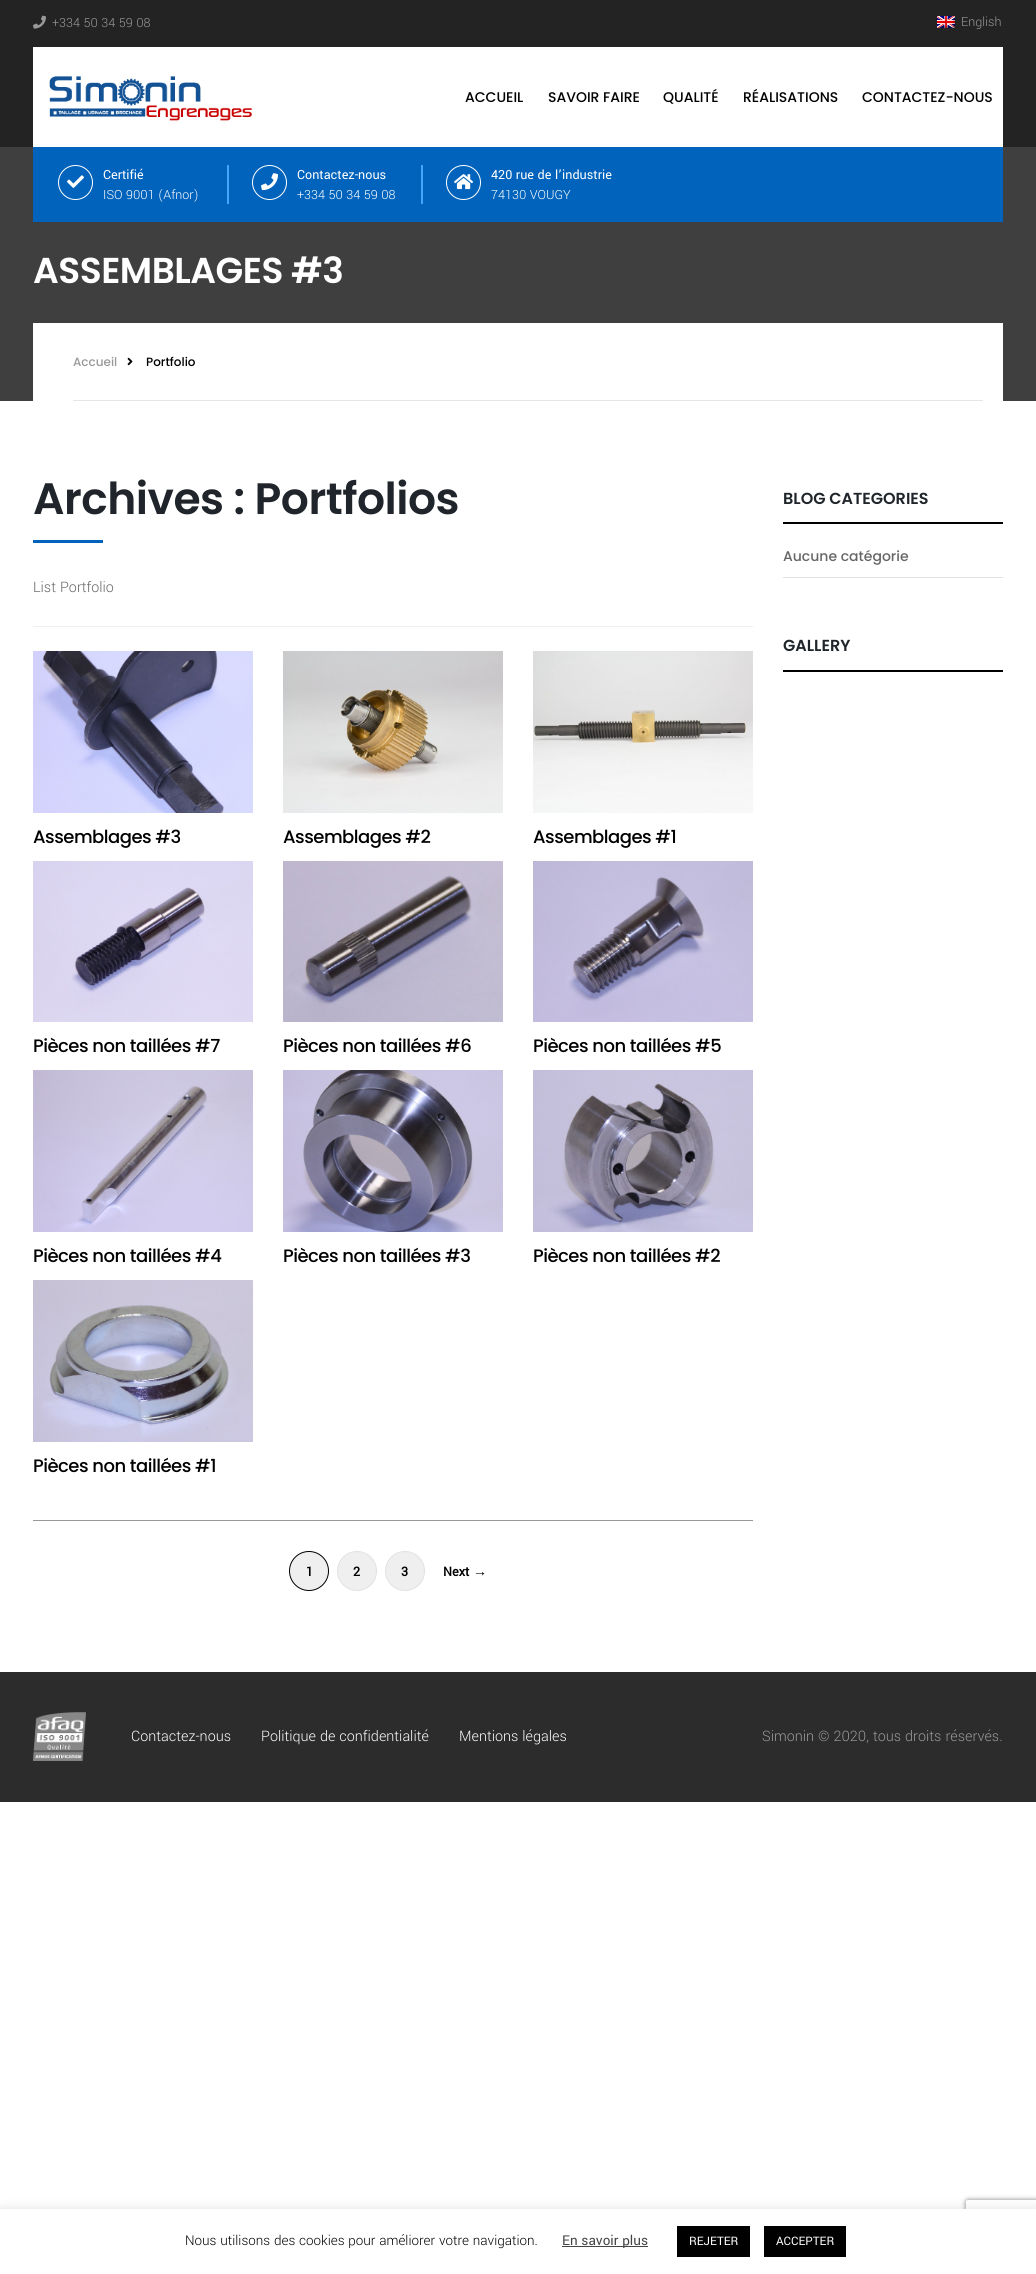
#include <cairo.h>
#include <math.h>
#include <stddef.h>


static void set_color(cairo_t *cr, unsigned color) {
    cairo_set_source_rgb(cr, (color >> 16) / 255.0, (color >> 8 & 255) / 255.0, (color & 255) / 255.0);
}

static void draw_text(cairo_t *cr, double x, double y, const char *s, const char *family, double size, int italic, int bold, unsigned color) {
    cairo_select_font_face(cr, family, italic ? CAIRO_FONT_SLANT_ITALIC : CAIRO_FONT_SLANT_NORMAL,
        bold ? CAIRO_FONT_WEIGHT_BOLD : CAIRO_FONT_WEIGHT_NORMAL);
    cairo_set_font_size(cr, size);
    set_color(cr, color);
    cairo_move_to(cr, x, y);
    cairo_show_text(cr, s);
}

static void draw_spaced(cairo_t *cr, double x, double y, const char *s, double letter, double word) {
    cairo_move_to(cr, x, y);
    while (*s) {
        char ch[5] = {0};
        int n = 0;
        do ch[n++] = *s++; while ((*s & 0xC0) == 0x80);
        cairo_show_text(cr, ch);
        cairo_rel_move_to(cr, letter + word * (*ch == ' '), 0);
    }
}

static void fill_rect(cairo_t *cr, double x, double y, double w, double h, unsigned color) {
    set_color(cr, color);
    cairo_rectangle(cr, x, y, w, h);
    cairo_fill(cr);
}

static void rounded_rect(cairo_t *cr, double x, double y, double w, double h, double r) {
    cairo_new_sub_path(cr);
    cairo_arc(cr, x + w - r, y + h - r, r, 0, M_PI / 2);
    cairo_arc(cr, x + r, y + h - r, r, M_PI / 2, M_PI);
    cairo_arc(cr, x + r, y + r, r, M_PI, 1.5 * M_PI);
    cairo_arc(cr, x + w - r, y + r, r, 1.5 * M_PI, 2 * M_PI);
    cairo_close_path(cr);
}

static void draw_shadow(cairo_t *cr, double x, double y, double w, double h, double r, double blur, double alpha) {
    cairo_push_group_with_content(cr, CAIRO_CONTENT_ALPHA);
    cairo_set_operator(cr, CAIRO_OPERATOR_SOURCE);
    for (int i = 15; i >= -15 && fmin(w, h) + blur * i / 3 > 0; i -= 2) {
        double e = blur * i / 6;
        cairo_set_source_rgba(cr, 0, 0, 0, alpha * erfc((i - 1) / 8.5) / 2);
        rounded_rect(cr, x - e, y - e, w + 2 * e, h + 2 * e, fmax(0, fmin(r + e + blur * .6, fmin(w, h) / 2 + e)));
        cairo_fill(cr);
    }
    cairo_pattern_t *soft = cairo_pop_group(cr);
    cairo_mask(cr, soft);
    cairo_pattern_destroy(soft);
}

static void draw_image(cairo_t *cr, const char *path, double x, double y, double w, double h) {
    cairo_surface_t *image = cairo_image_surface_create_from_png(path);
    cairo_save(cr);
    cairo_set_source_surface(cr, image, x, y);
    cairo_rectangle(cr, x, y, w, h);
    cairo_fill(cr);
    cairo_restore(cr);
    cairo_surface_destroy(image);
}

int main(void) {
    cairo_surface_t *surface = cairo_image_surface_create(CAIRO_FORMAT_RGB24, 1036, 2274);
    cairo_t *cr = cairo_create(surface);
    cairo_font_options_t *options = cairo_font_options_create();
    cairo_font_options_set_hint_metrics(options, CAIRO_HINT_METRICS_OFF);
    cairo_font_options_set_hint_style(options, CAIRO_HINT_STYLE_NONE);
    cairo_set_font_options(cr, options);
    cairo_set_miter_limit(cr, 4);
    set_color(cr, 0xFFFFFF);
    cairo_paint(cr);
    fill_rect(cr, 0, 0, 1036, 147, 0x232323);
    draw_image(cr, "assets/img1.png", 33, 15, 13, 14);
    draw_text(cr, 52, 27, "+334 50 34 59 08", "Yantramanav Light", 14, 0, 0, 0x999999);
    draw_image(cr, "assets/img2.png", 937, 16, 18, 12);
    draw_text(cr, 961, 26, "English", "Yantramanav Light", 14, 0, 0, 0x999999);
    fill_rect(cr, 33, 47, 970, 100, 0xFFFFFF);
    draw_image(cr, "assets/img3.png", 49, 76, 203, 45);
    draw_text(cr, 465, 102, "ACCUEIL", "Poppins Medium", 14, 0, 0, 0x000000);
    draw_text(cr, 548, 102, "SAVOIR FAIRE", "Poppins Medium", 14, 0, 0, 0x000000);
    draw_text(cr, 663, 102, "QUALITÉ", "Poppins Medium", 14, 0, 0, 0x000000);
    draw_text(cr, 743, 102, "RÉALISATIONS", "Poppins Medium", 14, 0, 0, 0x000000);
    draw_text(cr, 862, 102, "CONTACTEZ-NOUS", "Poppins Medium", 14, 0, 0, 0x000000);
    fill_rect(cr, 0, 147, 1036, 254, 0x3F3F3F);
    fill_rect(cr, 33, 147, 970, 75, 0x0163BC);
    cairo_new_path(cr);
    cairo_arc(cr, 75.5, 182.5, 17, 0, 2 * M_PI);
    set_color(cr, 0xFFFFFF);
    cairo_set_line_width(cr, 1);
    cairo_stroke(cr);
    draw_image(cr, "assets/img4.png", 67, 175, 17, 13);
    draw_text(cr, 103, 179, "Certifié", "Yantramanav", 14, 0, 0, 0xFFFFFF);
    draw_text(cr, 103, 199, "ISO 9001 (Afnor)", "Yantramanav Light", 14, 0, 0, 0xFFFFFF);
    fill_rect(cr, 227, 165, 2, 39, 0x46A6FD);
    cairo_new_path(cr);
    cairo_arc(cr, 269.5, 182.5, 17, 0, 2 * M_PI);
    set_color(cr, 0xFFFFFF);
    cairo_stroke(cr);
    draw_image(cr, "assets/img5.png", 261, 173, 17, 18);
    draw_text(cr, 297, 179, "Contactez-nous", "Yantramanav", 14, 0, 0, 0xFFFFFF);
    draw_text(cr, 297, 199, "+334 50 34 59 08", "Yantramanav Light", 14, 0, 0, 0xFFFFFF);
    fill_rect(cr, 421, 165, 2, 39, 0x46A6FD);
    cairo_new_path(cr);
    cairo_arc(cr, 463.5, 182.5, 17, 0, 2 * M_PI);
    set_color(cr, 0xFFFFFF);
    cairo_stroke(cr);
    draw_image(cr, "assets/img6.png", 454, 174, 20, 16);
    draw_text(cr, 491, 179, "420 rue de l’industrie", "Yantramanav", 14, 0, 0, 0xFFFFFF);
    draw_text(cr, 491, 199, "74130 VOUGY", "Yantramanav Light", 14, 0, 0, 0xFFFFFF);
    cairo_select_font_face(cr, "Poppins SemiBold", CAIRO_FONT_SLANT_NORMAL, CAIRO_FONT_WEIGHT_NORMAL);
    cairo_set_font_size(cr, 36);
    draw_spaced(cr, 33, 283, "ASSEMBLAGES #3", -0.5, 0);
    fill_rect(cr, 33, 323, 970, 78, 0xFFFFFF);
    draw_text(cr, 73, 366, "Accueil", "Poppins Medium", 12, 0, 0, 0x999999);
    draw_image(cr, "assets/img7.png", 127, 357, 6, 9);
    draw_text(cr, 146, 366, "Portfolio", "Poppins Medium", 12, 0, 0, 0x000000);
    fill_rect(cr, 73, 400, 910, 1, 0xE5E5E5);
    fill_rect(cr, 33, 626, 720, 1, 0xEEEEEE);
    cairo_select_font_face(cr, "Poppins SemiBold", CAIRO_FONT_SLANT_NORMAL, CAIRO_FONT_WEIGHT_NORMAL);
    cairo_set_font_size(cr, 44);
    set_color(cr, 0x1F252B);
    draw_spaced(cr, 33, 514, "Archives : Portfolios", -0.5, 0);
    fill_rect(cr, 33, 540, 70, 3, 0x0163BC);
    draw_text(cr, 33, 592, "List Portfolio", "Yantramanav Light", 16, 0, 0, 0x666666);
    draw_image(cr, "assets/img8.png", 33, 651, 220, 162);
    cairo_select_font_face(cr, "Poppins Medium", CAIRO_FONT_SLANT_NORMAL, CAIRO_FONT_WEIGHT_NORMAL);
    cairo_set_font_size(cr, 18);
    set_color(cr, 0x000000);
    draw_spaced(cr, 33, 843, "Assemblages #3", -0.5, 0);
    draw_image(cr, "assets/img9.png", 283, 651, 220, 162);
    draw_spaced(cr, 283, 843, "Assemblages #2", -0.5, 0);
    draw_image(cr, "assets/img10.png", 533, 651, 220, 162);
    draw_spaced(cr, 533, 843, "Assemblages #1", -0.5, 0);
    draw_image(cr, "assets/img11.png", 33, 861, 220, 161);
    draw_spaced(cr, 33, 1052, "Pièces non taillées #7", -0.5, 0);
    draw_image(cr, "assets/img12.png", 283, 861, 220, 161);
    draw_spaced(cr, 283, 1052, "Pièces non taillées #6", -0.5, 0);
    draw_image(cr, "assets/img13.png", 533, 861, 220, 161);
    draw_spaced(cr, 533, 1052, "Pièces non taillées #5", -0.5, 0);
    draw_image(cr, "assets/img14.png", 33, 1070, 220, 162);
    draw_spaced(cr, 33, 1262, "Pièces non taillées #4", -0.5, 0);
    draw_image(cr, "assets/img15.png", 283, 1070, 220, 162);
    draw_spaced(cr, 283, 1262, "Pièces non taillées #3", -0.5, 0);
    draw_image(cr, "assets/img16.png", 533, 1070, 220, 162);
    draw_spaced(cr, 533, 1262, "Pièces non taillées #2", -0.5, 0);
    draw_image(cr, "assets/img17.png", 33, 1280, 220, 162);
    draw_spaced(cr, 33, 1472, "Pièces non taillées #1", -0.5, 0);
    fill_rect(cr, 33, 1520, 720, 1, 0x999999);
    set_color(cr, 0xEFEFEF);
    cairo_new_path(cr);
    cairo_arc(cr, 309, 1571, 19.5, 0, 2 * M_PI);
    cairo_fill_preserve(cr);
    set_color(cr, 0x000000);
    cairo_stroke(cr);
    draw_text(cr, 306, 1576, "1", "Yantramanav", 14, 0, 1, 0x000000);
    set_color(cr, 0xEFEFEF);
    cairo_new_path(cr);
    cairo_arc(cr, 357, 1571, 19.5, 0, 2 * M_PI);
    cairo_fill_preserve(cr);
    set_color(cr, 0xE2E2E2);
    cairo_stroke(cr);
    draw_text(cr, 353, 1576, "2", "Yantramanav", 14, 0, 1, 0x000000);
    set_color(cr, 0xEFEFEF);
    cairo_new_path(cr);
    cairo_arc(cr, 405, 1571, 19.5, 0, 2 * M_PI);
    cairo_fill_preserve(cr);
    set_color(cr, 0xE2E2E2);
    cairo_stroke(cr);
    draw_text(cr, 401, 1576, "3", "Yantramanav", 14, 0, 1, 0x000000);
    draw_text(cr, 443, 1576, "Next", "Yantramanav", 14, 0, 1, 0x000000);
    draw_text(cr, 473, 1576, "→", "Liberation Serif", 14, 0, 1, 0x000000);
    fill_rect(cr, 783, 522, 220, 2, 0x000000);
    draw_text(cr, 783, 504, "BLOG CATEGORIES", "Poppins SemiBold", 16, 0, 0, 0x1F252B);
    fill_rect(cr, 783, 577, 220, 1, 0xE2E2E2);
    draw_text(cr, 783, 561, "Aucune catégorie", "Poppins Medium", 14, 0, 0, 0x666666);
    fill_rect(cr, 783, 670, 220, 2, 0x000000);
    draw_text(cr, 783, 651, "GALLERY", "Poppins SemiBold", 16, 0, 0, 0x1F252B);
    fill_rect(cr, 0, 1672, 1036, 130, 0x2C2C2C);
    draw_image(cr, "assets/img18.png", 33, 1712, 53, 49);
    draw_text(cr, 131, 1741, "Contactez-nous", "Yantramanav Light", 16, 0, 0, 0xFFFFFF);
    draw_text(cr, 261, 1741, "Politique de confidentialité", "Yantramanav Light", 16, 0, 0, 0xFFFFFF);
    draw_text(cr, 459, 1741, "Mentions légales", "Yantramanav Light", 16, 0, 0, 0xFFFFFF);
    draw_text(cr, 762, 1741, "Simonin © 2020, tous droits réservés.", "Yantramanav Light", 16, 0, 0, 0x999999);
    set_color(cr, 0xACABAB);
    draw_shadow(cr, 0, 2208, 1036, 65, 0, 5, 0.3);
    cairo_save(cr);
    cairo_set_fill_rule(cr, CAIRO_FILL_RULE_EVEN_ODD);
    cairo_new_path(cr);
    cairo_move_to(cr, 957, 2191);
    cairo_line_to(cr, 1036, 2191);
    cairo_line_to(cr, 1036, 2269);
    cairo_line_to(cr, 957, 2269);
    cairo_close_path(cr);
    cairo_move_to(cr, 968, 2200);
    cairo_line_to(cr, 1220, 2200);
    cairo_curve_to(cr, 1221, 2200, 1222, 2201, 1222, 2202);
    cairo_line_to(cr, 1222, 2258);
    cairo_curve_to(cr, 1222, 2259, 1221, 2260, 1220, 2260);
    cairo_line_to(cr, 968, 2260);
    cairo_curve_to(cr, 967, 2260, 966, 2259, 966, 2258);
    cairo_line_to(cr, 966, 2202);
    cairo_curve_to(cr, 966, 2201, 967, 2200, 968, 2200);
    cairo_close_path(cr);
    cairo_clip(cr);
    set_color(cr, 0x808080);
    draw_shadow(cr, 966, 2200, 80, 60, 2, 2.5, 1);
    cairo_restore(cr);
    fill_rect(cr, 0, 2209, 1036, 65, 0xFFFFFF);
    draw_text(cr, 185, 2245, "Nous utilisons des cookies pour améliorer votre navigation.", "Yantramanav Light", 15, 0, 0, 0x000000);
    fill_rect(cr, 562, 2246, 86, 1, 0x444444);
    draw_text(cr, 562, 2245, "En savoir plus", "Yantramanav", 15, 0, 0, 0x444444);
    fill_rect(cr, 677, 2226, 73, 31, 0x000000);
    draw_text(cr, 689, 2245, "REJETER", "Yantramanav", 13, 0, 0, 0xFFFFFF);
    fill_rect(cr, 764, 2226, 82, 31, 0x000000);
    draw_text(cr, 776, 2245, "ACCEPTER", "Yantramanav", 13, 0, 0, 0xFFFFFF);
    cairo_surface_write_to_png(surface, "output.png");
    cairo_font_options_destroy(options);
    cairo_destroy(cr);
    cairo_surface_destroy(surface);
    return 0;
}
